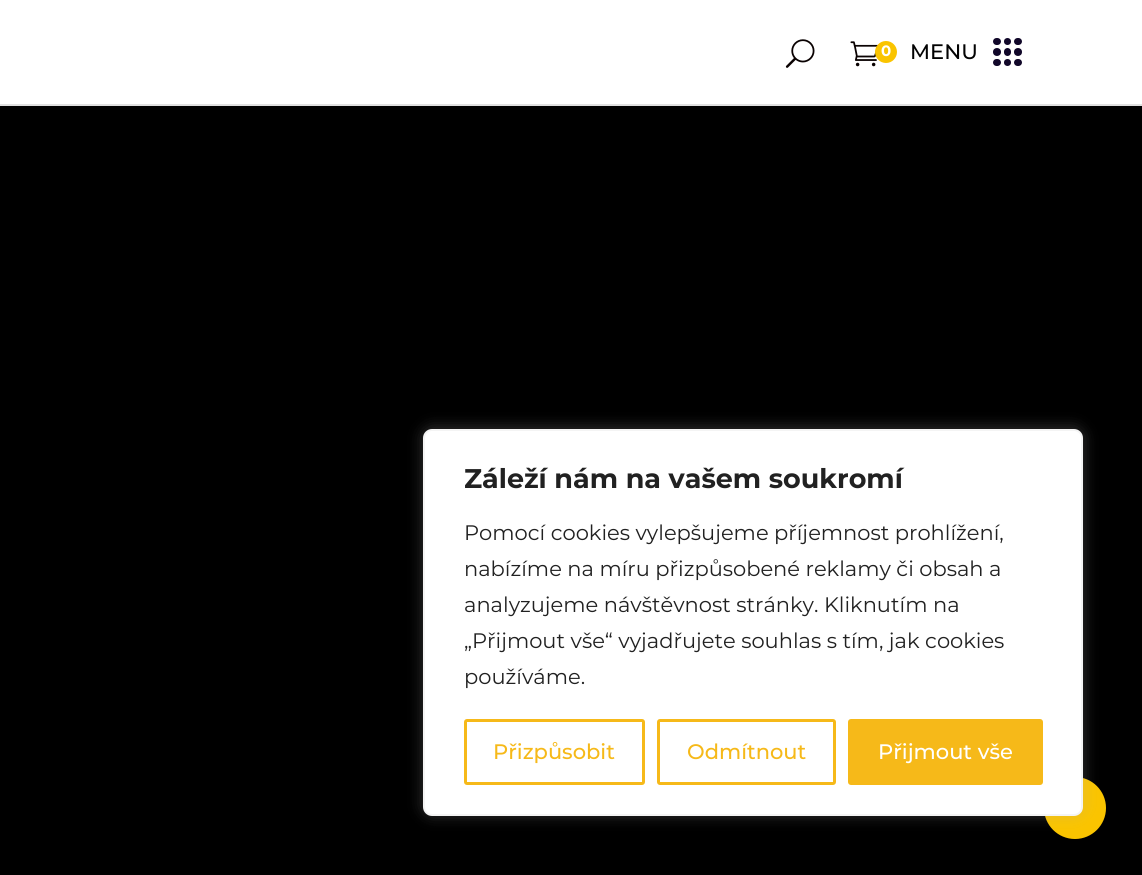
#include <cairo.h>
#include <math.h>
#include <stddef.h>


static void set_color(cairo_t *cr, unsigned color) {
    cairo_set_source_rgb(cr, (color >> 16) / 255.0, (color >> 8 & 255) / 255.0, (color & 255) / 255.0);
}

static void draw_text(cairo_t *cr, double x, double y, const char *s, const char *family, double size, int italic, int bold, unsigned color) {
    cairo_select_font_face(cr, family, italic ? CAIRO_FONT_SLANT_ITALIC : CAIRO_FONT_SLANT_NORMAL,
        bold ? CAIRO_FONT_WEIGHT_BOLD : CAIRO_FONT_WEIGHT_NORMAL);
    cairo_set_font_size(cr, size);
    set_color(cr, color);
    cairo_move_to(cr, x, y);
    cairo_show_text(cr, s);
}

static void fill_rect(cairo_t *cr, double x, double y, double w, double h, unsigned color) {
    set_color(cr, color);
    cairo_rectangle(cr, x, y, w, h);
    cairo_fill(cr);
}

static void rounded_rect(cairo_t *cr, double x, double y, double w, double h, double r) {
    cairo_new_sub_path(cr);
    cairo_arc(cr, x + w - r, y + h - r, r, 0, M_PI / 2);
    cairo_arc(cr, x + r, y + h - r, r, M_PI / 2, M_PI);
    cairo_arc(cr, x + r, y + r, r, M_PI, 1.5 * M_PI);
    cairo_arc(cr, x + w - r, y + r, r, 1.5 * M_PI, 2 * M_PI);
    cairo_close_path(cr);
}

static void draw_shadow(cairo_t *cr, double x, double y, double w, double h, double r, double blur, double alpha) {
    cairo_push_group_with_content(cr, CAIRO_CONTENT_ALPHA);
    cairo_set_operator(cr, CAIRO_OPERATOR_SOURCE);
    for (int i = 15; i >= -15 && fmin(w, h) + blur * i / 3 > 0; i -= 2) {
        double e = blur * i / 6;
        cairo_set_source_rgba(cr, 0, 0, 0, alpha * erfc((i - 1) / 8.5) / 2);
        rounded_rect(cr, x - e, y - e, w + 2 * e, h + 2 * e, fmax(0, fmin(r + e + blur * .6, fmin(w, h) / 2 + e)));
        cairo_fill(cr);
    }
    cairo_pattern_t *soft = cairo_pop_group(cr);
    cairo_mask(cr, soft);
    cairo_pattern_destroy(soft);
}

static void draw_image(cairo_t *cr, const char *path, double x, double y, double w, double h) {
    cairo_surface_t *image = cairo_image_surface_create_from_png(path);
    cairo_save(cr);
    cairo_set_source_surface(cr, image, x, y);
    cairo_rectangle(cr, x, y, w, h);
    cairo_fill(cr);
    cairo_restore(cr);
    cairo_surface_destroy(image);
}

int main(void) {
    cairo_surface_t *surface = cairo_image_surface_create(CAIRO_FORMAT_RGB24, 1142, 875);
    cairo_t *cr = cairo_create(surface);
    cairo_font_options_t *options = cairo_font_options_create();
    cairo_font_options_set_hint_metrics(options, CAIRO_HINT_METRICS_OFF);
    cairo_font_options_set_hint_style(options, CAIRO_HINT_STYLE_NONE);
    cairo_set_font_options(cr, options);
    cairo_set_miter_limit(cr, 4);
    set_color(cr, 0x000000);
    cairo_paint(cr);
    fill_rect(cr, 0, 0, 1142, 104, 0xFFFFFF);
    fill_rect(cr, 0, 104, 1142, 2, 0xE1E1E1);
    draw_image(cr, "assets/img1.png", 785, 39, 30, 29);
    draw_image(cr, "assets/img2.png", 850, 41, 28, 26);
    set_color(cr, 0xFAC400);
    cairo_arc(cr, 886, 52, 11, 0, 2 * M_PI);
    cairo_fill(cr);
    draw_text(cr, 881, 56, "0", "Montserrat", 15, 0, 1, 0xFFFFFF);
    draw_text(cr, 910, 59, "MENU", "Montserrat Medium", 21, 0, 0, 0x020202);
    set_color(cr, 0x110729);
    rounded_rect(cr, 993, 38, 8, 7, 3.5);
    cairo_fill(cr);
    cairo_arc(cr, 1007.5, 41.5, 3.5, 0, 2 * M_PI);
    cairo_fill(cr);
    rounded_rect(cr, 1014, 38, 8, 7, 3.5);
    cairo_fill(cr);
    cairo_arc(cr, 997, 52, 4, 0, 2 * M_PI);
    cairo_fill(cr);
    rounded_rect(cr, 1004, 48, 7, 8, 3.5);
    cairo_fill(cr);
    cairo_arc(cr, 1018, 52, 4, 0, 2 * M_PI);
    cairo_fill(cr);
    rounded_rect(cr, 993, 59, 8, 7, 3.5);
    cairo_fill(cr);
    cairo_arc(cr, 1007.5, 62.5, 3.5, 0, 2 * M_PI);
    cairo_fill(cr);
    rounded_rect(cr, 1014, 59, 8, 7, 3.5);
    cairo_fill(cr);
    set_color(cr, 0xFAC400);
    cairo_arc(cr, 1075, 808, 30, 0, 2 * M_PI);
    cairo_fill_preserve(cr);
    cairo_stroke(cr);
    draw_image(cr, "assets/img3.png", 1081, 811, 1, 1);
    set_color(cr, 0xACABAB);
    draw_shadow(cr, 423, 428, 660, 387, 9, 7.5, 0.3);
    set_color(cr, 0xFFFFFF);
    rounded_rect(cr, 424, 430, 658, 385, 8);
    cairo_fill_preserve(cr);
    set_color(cr, 0xF4F4F4);
    cairo_stroke(cr);
    draw_text(cr, 464, 488, "Záleží nám na vašem soukromí", "Montserrat", 27, 0, 1, 0x212121);
    draw_text(cr, 464, 540, "Pomocí cookies vylepšujeme příjemnost prohlížení,", "Montserrat", 21, 0, 0, 0x212121);
    draw_text(cr, 464, 576, "nabízíme na míru přizpůsobené reklamy či obsah a", "Montserrat", 21, 0, 0, 0x212121);
    draw_text(cr, 464, 612, "analyzujeme návštěvnost stránky. Kliknutím na", "Montserrat", 21, 0, 0, 0x212121);
    draw_text(cr, 464, 648, "„Přijmout vše“ vyjadřujete souhlas s tím, jak cookies", "Montserrat", 21, 0, 0, 0x212121);
    draw_text(cr, 464, 684, "používáme.", "Montserrat", 21, 0, 0, 0x212121);
    rounded_rect(cr, 465.5, 720.5, 178, 63, 1.5);
    set_color(cr, 0xF6B919);
    cairo_set_line_width(cr, 3);
    cairo_stroke(cr);
    draw_text(cr, 493, 759, "Přizpůsobit", "Montserrat Medium", 21, 0, 0, 0xF6B919);
    rounded_rect(cr, 658.5, 720.5, 176, 63, 1.5);
    cairo_stroke(cr);
    draw_text(cr, 687, 759, "Odmítnout", "Montserrat Medium", 21, 0, 0, 0xF6B919);
    rounded_rect(cr, 849.5, 720.5, 192, 63, 1.5);
    cairo_fill_preserve(cr);
    cairo_stroke(cr);
    draw_text(cr, 878, 759, "Přijmout vše", "Montserrat Medium", 21, 0, 0, 0xFFFFFF);
    cairo_surface_write_to_png(surface, "output.png");
    cairo_font_options_destroy(options);
    cairo_destroy(cr);
    cairo_surface_destroy(surface);
    return 0;
}
